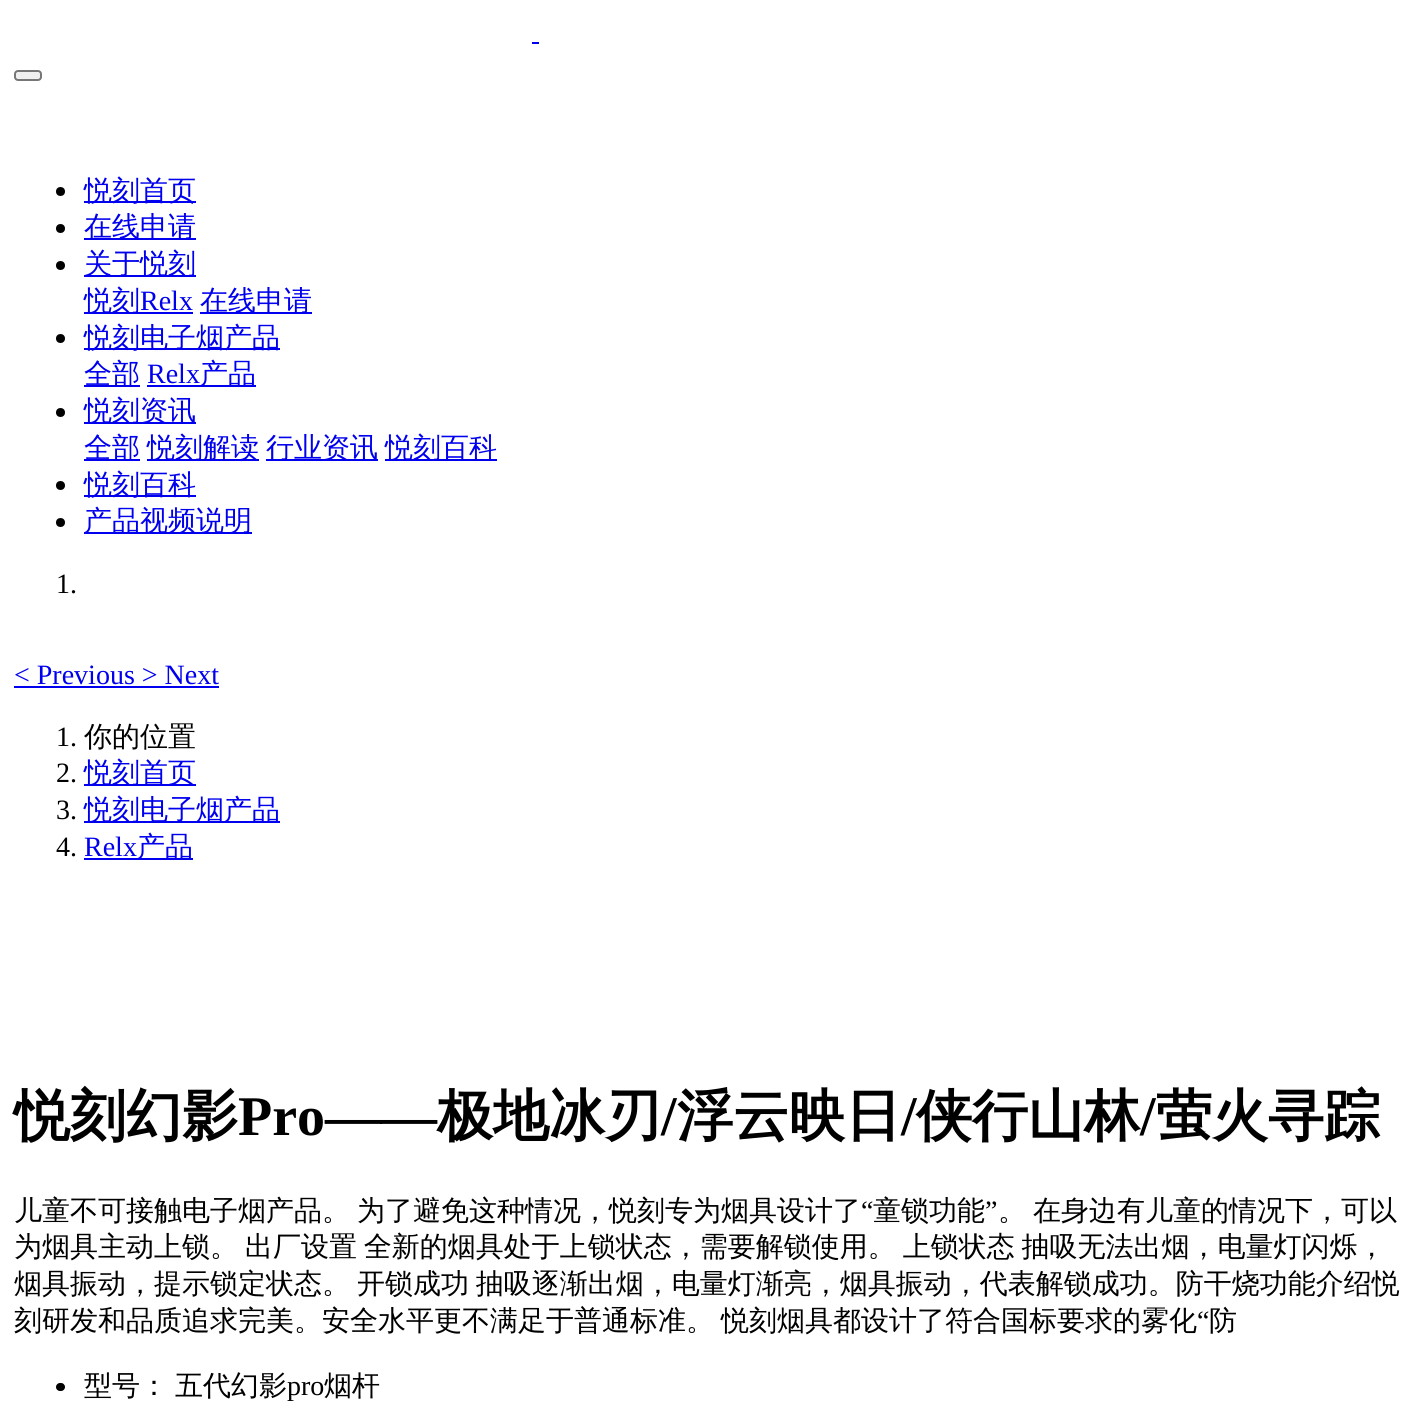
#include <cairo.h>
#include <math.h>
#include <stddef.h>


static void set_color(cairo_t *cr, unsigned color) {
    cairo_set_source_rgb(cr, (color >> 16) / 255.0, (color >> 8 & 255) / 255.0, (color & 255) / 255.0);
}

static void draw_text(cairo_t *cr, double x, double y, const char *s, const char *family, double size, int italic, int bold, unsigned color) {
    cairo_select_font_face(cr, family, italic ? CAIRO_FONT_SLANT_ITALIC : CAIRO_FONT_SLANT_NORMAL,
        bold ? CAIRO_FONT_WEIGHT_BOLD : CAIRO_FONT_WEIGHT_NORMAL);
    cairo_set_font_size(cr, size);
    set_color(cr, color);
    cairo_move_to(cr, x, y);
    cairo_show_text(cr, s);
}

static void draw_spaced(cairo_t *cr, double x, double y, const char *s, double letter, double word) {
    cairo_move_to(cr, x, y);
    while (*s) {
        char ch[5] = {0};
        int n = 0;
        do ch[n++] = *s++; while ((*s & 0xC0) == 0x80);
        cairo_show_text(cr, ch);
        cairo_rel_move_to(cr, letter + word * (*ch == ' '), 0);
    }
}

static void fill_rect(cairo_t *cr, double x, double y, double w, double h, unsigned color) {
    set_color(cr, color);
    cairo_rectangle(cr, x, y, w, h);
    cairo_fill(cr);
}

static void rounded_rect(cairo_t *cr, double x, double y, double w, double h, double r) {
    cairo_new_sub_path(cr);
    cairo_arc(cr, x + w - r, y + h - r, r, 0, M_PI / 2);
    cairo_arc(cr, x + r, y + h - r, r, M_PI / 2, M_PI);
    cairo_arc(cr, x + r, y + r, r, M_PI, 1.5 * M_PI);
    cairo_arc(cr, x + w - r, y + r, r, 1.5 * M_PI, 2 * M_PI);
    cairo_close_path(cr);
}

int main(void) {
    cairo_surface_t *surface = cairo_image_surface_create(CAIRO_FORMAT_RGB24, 1416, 1413);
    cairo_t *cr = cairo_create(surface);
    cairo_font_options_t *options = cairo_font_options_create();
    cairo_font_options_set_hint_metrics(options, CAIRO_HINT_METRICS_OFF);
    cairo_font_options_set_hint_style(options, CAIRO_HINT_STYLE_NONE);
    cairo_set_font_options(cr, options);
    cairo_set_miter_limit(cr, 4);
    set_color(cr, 0xFFFFFF);
    cairo_paint(cr);
    fill_rect(cr, 532, 42, 7, 2, 0x0000EE);
    set_color(cr, 0xEFEFEF);
    rounded_rect(cr, 15, 71, 26, 9, 3);
    cairo_fill_preserve(cr);
    set_color(cr, 0x767676);
    cairo_stroke(cr);
    set_color(cr, 0x000000);
    cairo_arc(cr, 60.5, 191.5, 4.5, 0, 2 * M_PI);
    cairo_fill(cr);
    fill_rect(cr, 84, 201, 112, 2, 0x0000EE);
    draw_text(cr, 84, 200, "悦刻首页", "WenQuanYi Zen Hei Medium", 28, 0, 0, 0x0000EE);
    set_color(cr, 0x000000);
    cairo_new_path(cr);
    cairo_arc(cr, 60.5, 228.5, 4.5, 0, 2 * M_PI);
    cairo_fill(cr);
    fill_rect(cr, 84, 238, 112, 2, 0x0000EE);
    draw_text(cr, 84, 236, "在线申请", "WenQuanYi Zen Hei Medium", 28, 0, 0, 0x0000EE);
    set_color(cr, 0x000000);
    cairo_new_path(cr);
    cairo_arc(cr, 60.5, 265.5, 4.5, 0, 2 * M_PI);
    cairo_fill(cr);
    fill_rect(cr, 84, 275, 112, 2, 0x0000EE);
    draw_text(cr, 84, 273, "关于悦刻", "WenQuanYi Zen Hei Medium", 28, 0, 0, 0x0000EE);
    fill_rect(cr, 84, 312, 109, 2, 0x0000EE);
    draw_text(cr, 84, 310, "悦刻", "WenQuanYi Zen Hei Medium", 28, 0, 0, 0x0000EE);
    draw_text(cr, 140, 310, "Relx", "Liberation Serif", 28, 0, 0, 0x0000EE);
    fill_rect(cr, 200, 312, 112, 2, 0x0000EE);
    draw_text(cr, 200, 310, "在线申请", "WenQuanYi Zen Hei Medium", 28, 0, 0, 0x0000EE);
    set_color(cr, 0x000000);
    cairo_new_path(cr);
    cairo_arc(cr, 60.5, 338.5, 4.5, 0, 2 * M_PI);
    cairo_fill(cr);
    fill_rect(cr, 84, 348, 196, 2, 0x0000EE);
    draw_text(cr, 84, 347, "悦刻电子烟产品", "WenQuanYi Zen Hei Medium", 28, 0, 0, 0x0000EE);
    fill_rect(cr, 84, 385, 56, 2, 0x0000EE);
    draw_text(cr, 84, 383, "全部", "WenQuanYi Zen Hei Medium", 28, 0, 0, 0x0000EE);
    draw_text(cr, 147, 383, "Relx", "Liberation Serif", 28, 0, 0, 0x0000EE);
    fill_rect(cr, 147, 385, 109, 2, 0x0000EE);
    draw_text(cr, 200, 383, "产品", "WenQuanYi Zen Hei Medium", 28, 0, 0, 0x0000EE);
    set_color(cr, 0x000000);
    cairo_new_path(cr);
    cairo_arc(cr, 60.5, 412.5, 4.5, 0, 2 * M_PI);
    cairo_fill(cr);
    fill_rect(cr, 84, 422, 112, 2, 0x0000EE);
    draw_text(cr, 84, 420, "悦刻资讯", "WenQuanYi Zen Hei Medium", 28, 0, 0, 0x0000EE);
    fill_rect(cr, 84, 459, 56, 2, 0x0000EE);
    draw_text(cr, 84, 457, "全部", "WenQuanYi Zen Hei Medium", 28, 0, 0, 0x0000EE);
    fill_rect(cr, 147, 459, 112, 2, 0x0000EE);
    draw_text(cr, 147, 457, "悦刻解读", "WenQuanYi Zen Hei Medium", 28, 0, 0, 0x0000EE);
    fill_rect(cr, 266, 459, 112, 2, 0x0000EE);
    draw_text(cr, 266, 457, "行业资讯", "WenQuanYi Zen Hei Medium", 28, 0, 0, 0x0000EE);
    fill_rect(cr, 385, 459, 112, 2, 0x0000EE);
    draw_text(cr, 385, 457, "悦刻百科", "WenQuanYi Zen Hei Medium", 28, 0, 0, 0x0000EE);
    set_color(cr, 0x000000);
    cairo_new_path(cr);
    cairo_arc(cr, 60.5, 485.5, 4.5, 0, 2 * M_PI);
    cairo_fill(cr);
    fill_rect(cr, 84, 495, 112, 2, 0x0000EE);
    draw_text(cr, 84, 494, "悦刻百科", "WenQuanYi Zen Hei Medium", 28, 0, 0, 0x0000EE);
    set_color(cr, 0x000000);
    cairo_new_path(cr);
    cairo_arc(cr, 60.5, 522.5, 4.5, 0, 2 * M_PI);
    cairo_fill(cr);
    fill_rect(cr, 84, 532, 168, 2, 0x0000EE);
    draw_text(cr, 84, 530, "产品视频说明", "WenQuanYi Zen Hei Medium", 28, 0, 0, 0x0000EE);
    draw_text(cr, 56, 593, "1.", "Liberation Serif", 28, 0, 0, 0x000000);
    draw_text(cr, 14, 684, "< Previous > Next", "Liberation Serif", 28, 0, 0, 0x0000EE);
    fill_rect(cr, 14, 686, 205, 2, 0x0000EE);
    draw_text(cr, 56, 746, "1.", "Liberation Serif", 28, 0, 0, 0x000000);
    draw_text(cr, 84, 746, "你的位置", "WenQuanYi Zen Hei Medium", 28, 0, 0, 0x000000);
    draw_text(cr, 56, 782, "2.", "Liberation Serif", 28, 0, 0, 0x000000);
    fill_rect(cr, 84, 784, 112, 2, 0x0000EE);
    draw_text(cr, 84, 782, "悦刻首页", "WenQuanYi Zen Hei Medium", 28, 0, 0, 0x0000EE);
    draw_text(cr, 56, 819, "3.", "Liberation Serif", 28, 0, 0, 0x000000);
    fill_rect(cr, 84, 821, 196, 2, 0x0000EE);
    draw_text(cr, 84, 819, "悦刻电子烟产品", "WenQuanYi Zen Hei Medium", 28, 0, 0, 0x0000EE);
    draw_text(cr, 56, 856, "4.", "Liberation Serif", 28, 0, 0, 0x000000);
    draw_text(cr, 84, 856, "Relx", "Liberation Serif", 28, 0, 0, 0x0000EE);
    fill_rect(cr, 84, 858, 109, 2, 0x0000EE);
    draw_text(cr, 137, 856, "产品", "WenQuanYi Zen Hei Medium", 28, 0, 0, 0x0000EE);
    draw_text(cr, 14, 1135, "悦刻幻影", "WenQuanYi Zen Hei", 56, 0, 1, 0x000000);
    draw_text(cr, 238, 1135, "Pro——", "Liberation Serif", 56, 0, 1, 0x000000);
    draw_text(cr, 437, 1135, "极地冰刃", "WenQuanYi Zen Hei", 56, 0, 1, 0x000000);
    draw_text(cr, 661, 1135, "/", "Liberation Serif", 56, 0, 1, 0x000000);
    draw_text(cr, 677, 1135, "浮云映日", "WenQuanYi Zen Hei", 56, 0, 1, 0x000000);
    draw_text(cr, 901, 1135, "/", "Liberation Serif", 56, 0, 1, 0x000000);
    draw_text(cr, 916, 1135, "侠行山林", "WenQuanYi Zen Hei", 56, 0, 1, 0x000000);
    draw_text(cr, 1140, 1135, "/", "Liberation Serif", 56, 0, 1, 0x000000);
    draw_text(cr, 1156, 1135, "萤火寻踪", "WenQuanYi Zen Hei", 56, 0, 1, 0x000000);
    cairo_select_font_face(cr, "WenQuanYi Zen Hei Medium", CAIRO_FONT_SLANT_NORMAL, CAIRO_FONT_WEIGHT_NORMAL);
    cairo_set_font_size(cr, 28);
    draw_spaced(cr, 14, 1220, "儿童不可接触电子烟产品。 为了避免这种情况，悦刻专为烟具设计了", 0, -1.5);
    draw_text(cr, 861, 1220, "“", "Liberation Serif", 28, 0, 0, 0x000000);
    draw_text(cr, 873, 1220, "童锁功能", "WenQuanYi Zen Hei Medium", 28, 0, 0, 0x000000);
    draw_text(cr, 985, 1220, "”", "Liberation Serif", 28, 0, 0, 0x000000);
    cairo_select_font_face(cr, "WenQuanYi Zen Hei Medium", CAIRO_FONT_SLANT_NORMAL, CAIRO_FONT_WEIGHT_NORMAL);
    draw_spaced(cr, 998, 1220, "。 在身边有儿童的情况下，可以", 0, -1.5);
    draw_spaced(cr, 14, 1256, "为烟具主动上锁。 出厂设置 全新的烟具处于上锁状态，需要解锁使用。 上锁状态 抽吸无法出烟，电量灯闪烁，", 0, -1.5);
    draw_spaced(cr, 14, 1293, "烟具振动，提示锁定状态。 开锁成功 抽吸逐渐出烟，电量灯渐亮，烟具振动，代表解锁成功。防干烧功能介绍悦", 0, -1.5);
    draw_spaced(cr, 14, 1330, "刻研发和品质追求完美。安全水平更不满足于普通标准。 悦刻烟具都设计了符合国标要求的雾化", 0, -1.5);
    draw_text(cr, 1197, 1330, "“", "Liberation Serif", 28, 0, 0, 0x000000);
    draw_text(cr, 1209, 1330, "防", "WenQuanYi Zen Hei Medium", 28, 0, 0, 0x000000);
    rounded_rect(cr, 56, 1383, 9, 8, 4);
    cairo_fill(cr);
    draw_text(cr, 84, 1395, "型号：", "WenQuanYi Zen Hei Medium", 28, 0, 0, 0x000000);
    draw_text(cr, 175, 1395, "五代幻影", "WenQuanYi Zen Hei Medium", 28, 0, 0, 0x000000);
    draw_text(cr, 287, 1395, "pro", "Liberation Serif", 28, 0, 0, 0x000000);
    draw_text(cr, 324, 1395, "烟杆", "WenQuanYi Zen Hei Medium", 28, 0, 0, 0x000000);
    cairo_surface_write_to_png(surface, "output.png");
    cairo_font_options_destroy(options);
    cairo_destroy(cr);
    cairo_surface_destroy(surface);
    return 0;
}
